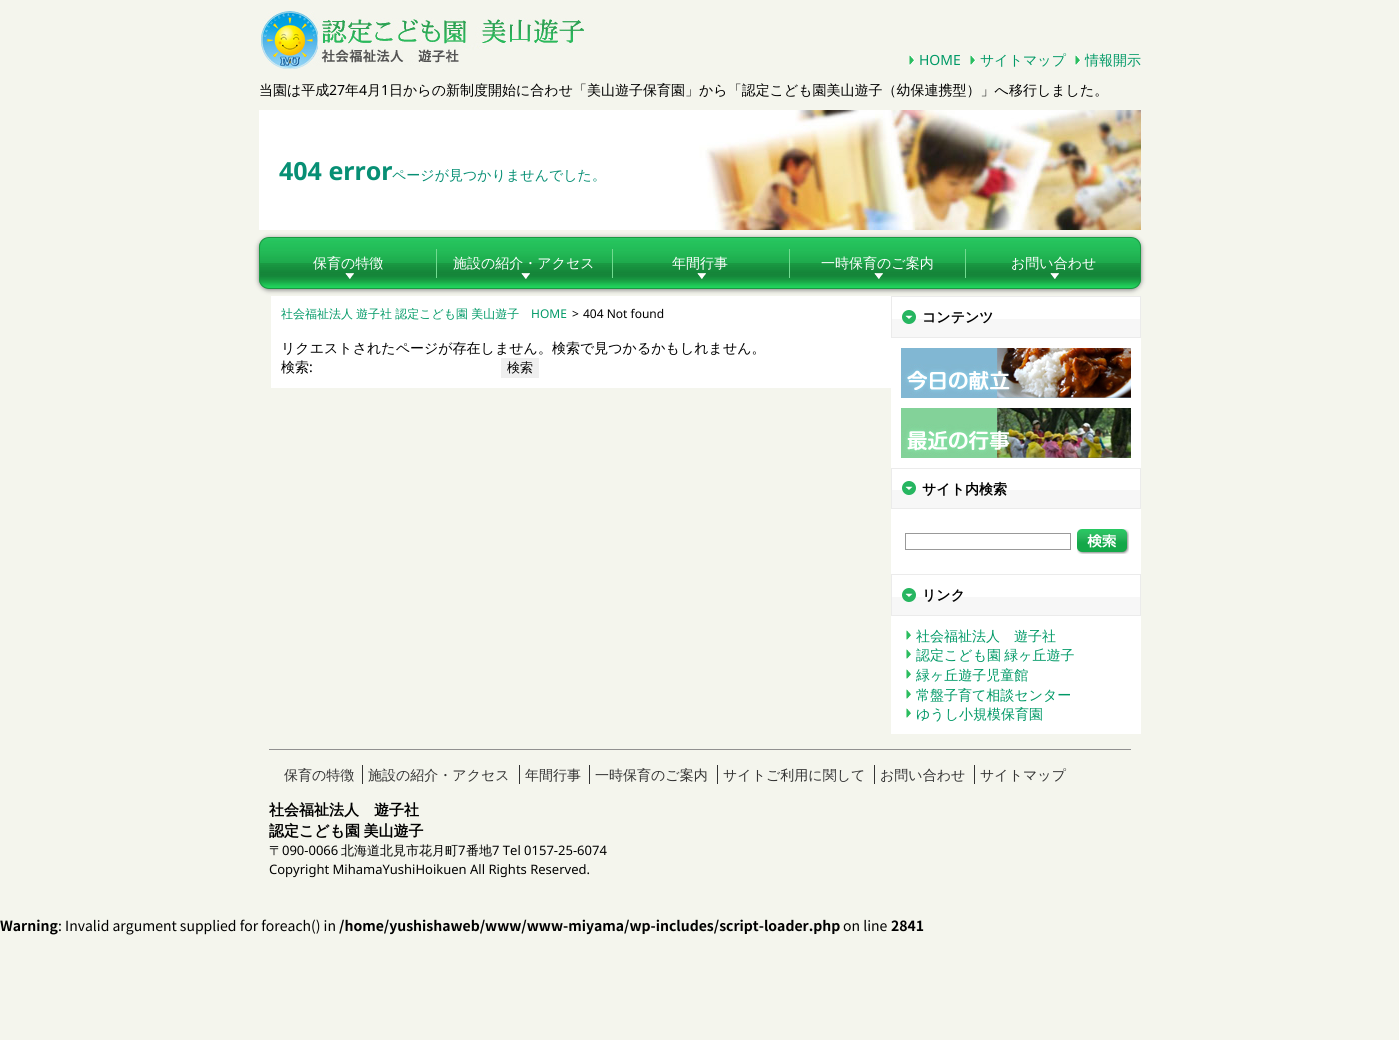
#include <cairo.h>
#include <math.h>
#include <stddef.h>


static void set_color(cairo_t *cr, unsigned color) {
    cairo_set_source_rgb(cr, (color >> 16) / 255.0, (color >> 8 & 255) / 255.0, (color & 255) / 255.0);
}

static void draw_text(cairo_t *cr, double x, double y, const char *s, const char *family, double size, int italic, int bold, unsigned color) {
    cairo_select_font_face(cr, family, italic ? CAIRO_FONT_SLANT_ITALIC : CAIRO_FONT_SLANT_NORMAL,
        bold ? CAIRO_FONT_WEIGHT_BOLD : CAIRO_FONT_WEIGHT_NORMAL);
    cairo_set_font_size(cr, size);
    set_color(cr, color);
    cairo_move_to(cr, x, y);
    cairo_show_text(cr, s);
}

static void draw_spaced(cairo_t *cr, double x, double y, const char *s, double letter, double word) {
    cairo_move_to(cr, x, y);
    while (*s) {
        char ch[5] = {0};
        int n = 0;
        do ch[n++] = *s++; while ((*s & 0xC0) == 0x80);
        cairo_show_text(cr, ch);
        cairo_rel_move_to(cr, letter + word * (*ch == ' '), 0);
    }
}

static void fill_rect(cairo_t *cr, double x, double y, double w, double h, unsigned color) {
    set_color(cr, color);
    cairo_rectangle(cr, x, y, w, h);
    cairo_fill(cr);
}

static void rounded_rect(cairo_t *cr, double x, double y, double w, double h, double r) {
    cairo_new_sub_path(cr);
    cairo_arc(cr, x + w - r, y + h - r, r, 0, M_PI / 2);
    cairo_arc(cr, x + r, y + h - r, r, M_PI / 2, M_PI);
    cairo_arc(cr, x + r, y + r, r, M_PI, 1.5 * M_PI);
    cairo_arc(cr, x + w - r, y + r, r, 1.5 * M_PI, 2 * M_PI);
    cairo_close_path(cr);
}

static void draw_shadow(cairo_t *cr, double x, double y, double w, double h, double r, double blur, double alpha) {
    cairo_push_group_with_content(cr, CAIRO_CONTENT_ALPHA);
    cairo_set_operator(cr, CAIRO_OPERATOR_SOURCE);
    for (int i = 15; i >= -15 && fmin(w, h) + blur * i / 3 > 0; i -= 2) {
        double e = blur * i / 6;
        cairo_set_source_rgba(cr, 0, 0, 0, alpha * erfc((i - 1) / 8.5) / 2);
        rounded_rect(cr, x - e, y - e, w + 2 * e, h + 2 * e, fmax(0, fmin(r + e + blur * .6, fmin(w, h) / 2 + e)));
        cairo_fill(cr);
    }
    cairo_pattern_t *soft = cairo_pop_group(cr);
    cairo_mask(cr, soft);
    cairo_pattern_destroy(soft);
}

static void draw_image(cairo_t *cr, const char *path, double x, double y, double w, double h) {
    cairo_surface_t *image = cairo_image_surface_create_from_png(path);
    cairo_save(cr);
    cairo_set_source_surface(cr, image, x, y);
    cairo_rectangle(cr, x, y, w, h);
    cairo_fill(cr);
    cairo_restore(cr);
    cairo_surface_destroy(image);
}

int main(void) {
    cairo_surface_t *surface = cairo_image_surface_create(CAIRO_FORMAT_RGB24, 1399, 1040);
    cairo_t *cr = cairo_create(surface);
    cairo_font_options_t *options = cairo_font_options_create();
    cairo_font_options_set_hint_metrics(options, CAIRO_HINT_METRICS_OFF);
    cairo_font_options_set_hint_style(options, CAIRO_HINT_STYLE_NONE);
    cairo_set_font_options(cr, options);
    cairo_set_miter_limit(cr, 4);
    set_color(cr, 0xF4F5ED);
    cairo_paint(cr);
    draw_image(cr, "assets/img1.png", 261, 11, 323, 58);
    draw_image(cr, "assets/img2.png", 909, 55, 6, 11);
    draw_text(cr, 919, 65, "HOME", "Noto Sans", 14, 0, 0, 0x009966);
    draw_image(cr, "assets/img2.png", 970, 55, 6, 11);
    draw_text(cr, 980, 65, "サイトマップ", "WenQuanYi Zen Hei Medium", 14, 0, 0, 0x009966);
    draw_image(cr, "assets/img2.png", 1075, 55, 6, 11);
    draw_text(cr, 1085, 65, "情報開示", "WenQuanYi Zen Hei Medium", 14, 0, 0, 0x009966);
    draw_text(cr, 259, 95, "当園は平成", "WenQuanYi Zen Hei Medium", 14, 0, 0, 0x000000);
    draw_text(cr, 329, 95, "27", "Noto Sans", 14, 0, 0, 0x000000);
    draw_text(cr, 345, 95, "年", "WenQuanYi Zen Hei Medium", 14, 0, 0, 0x000000);
    draw_text(cr, 359, 95, "4", "Noto Sans", 14, 0, 0, 0x000000);
    draw_text(cr, 367, 95, "月", "WenQuanYi Zen Hei Medium", 14, 0, 0, 0x000000);
    draw_text(cr, 381, 95, "1", "Noto Sans", 14, 0, 0, 0x000000);
    draw_text(cr, 389, 95, "日からの新制度開始に合わせ「美山遊子保育園」から「認定こども園美山遊子（幼保連携型）」へ移行しました。", "WenQuanYi Zen Hei Medium", 14, 0, 0, 0x000000);
    draw_image(cr, "assets/img3.png", 259, 110, 882, 120);
    draw_text(cr, 279, 180, "404 error", "Noto Sans", 25, 0, 1, 0x078F74);
    draw_text(cr, 392, 180, "ページが見つかりませんでした。", "WenQuanYi Zen Hei Medium", 14, 0, 0, 0x078F74);
    set_color(cr, 0x818181);
    draw_shadow(cr, 259, 238, 882, 52, 10, 2.5, 1);
    draw_image(cr, "assets/img4.png", 259, 238, 882, 50);
    rounded_rect(cr, 259.5, 237.5, 881, 51, 9.5);
    set_color(cr, 0x199942);
    cairo_set_line_width(cr, 1);
    cairo_stroke(cr);
    draw_text(cr, 313, 268, "保育の特徴", "WenQuanYi Zen Hei Medium", 14, 0, 0, 0xFFFFFF);
    draw_image(cr, "assets/img5.png", 345, 273, 9, 6);
    fill_rect(cr, 436, 249, 1, 29, 0x71DB90);
    draw_text(cr, 453, 268, "施設の紹介・アクセス", "WenQuanYi Zen Hei Medium", 14, 0, 0, 0xFFFFFF);
    draw_image(cr, "assets/img5.png", 521, 273, 9, 6);
    fill_rect(cr, 612, 249, 1, 29, 0x71DB90);
    draw_text(cr, 672, 268, "年間行事", "WenQuanYi Zen Hei Medium", 14, 0, 0, 0xFFFFFF);
    draw_image(cr, "assets/img5.png", 697, 273, 9, 6);
    fill_rect(cr, 789, 249, 1, 29, 0x71DB90);
    draw_text(cr, 821, 268, "一時保育のご案内", "WenQuanYi Zen Hei Medium", 14, 0, 0, 0xFFFFFF);
    draw_image(cr, "assets/img5.png", 874, 273, 9, 6);
    fill_rect(cr, 965, 249, 1, 29, 0x71DB90);
    draw_text(cr, 1011, 268, "お問い合わせ", "WenQuanYi Zen Hei Medium", 14, 0, 0, 0xFFFFFF);
    draw_image(cr, "assets/img5.png", 1050, 273, 9, 6);
    fill_rect(cr, 271, 296, 620, 92, 0xFFFFFF);
    cairo_set_font_size(cr, 12);
    set_color(cr, 0x009966);
    draw_spaced(cr, 281, 318, "社会福祉法人 遊子社 認定こども園 美山遊子", 0, -0.5);
    draw_text(cr, 531, 318, "HOME", "Noto Sans", 12, 0, 0, 0x009966);
    draw_text(cr, 572, 318, ">", "Noto Sans", 12, 0, 0, 0x000000);
    draw_text(cr, 583, 318, "404 Not found", "Noto Sans", 12, 0, 0, 0x000000);
    draw_text(cr, 281, 353, "リクエストされたページが存在しません。検索で見つかるかもしれません。", "WenQuanYi Zen Hei Medium", 14, 0, 0, 0x000000);
    draw_text(cr, 281, 372, "検索", "WenQuanYi Zen Hei Medium", 14, 0, 0, 0x000000);
    draw_text(cr, 309, 372, ":", "Noto Sans", 14, 0, 0, 0x000000);
    fill_rect(cr, 501, 358, 38, 20, 0xEFEFEF);
    draw_text(cr, 507, 372, "検索", "WenQuanYi Zen Hei Medium", 13, 0, 0, 0x000000);
    fill_rect(cr, 891, 297, 250, 437, 0xFFFFFF);
    fill_rect(cr, 892, 319, 248, 18, 0xF7F7F7);
    cairo_rectangle(cr, 891.5, 296.5, 249, 41);
    set_color(cr, 0xEBEBEB);
    cairo_stroke(cr);
    draw_image(cr, "assets/img6.png", 902, 310, 14, 14);
    draw_text(cr, 922, 322, "コンテンツ", "WenQuanYi Zen Hei", 14, 0, 1, 0x000000);
    draw_image(cr, "assets/img7.png", 901, 348, 230, 50);
    draw_image(cr, "assets/img8.png", 901, 408, 230, 50);
    fill_rect(cr, 892, 490, 248, 18, 0xF7F7F7);
    cairo_rectangle(cr, 891.5, 468.5, 249, 40);
    set_color(cr, 0xEBEBEB);
    cairo_stroke(cr);
    draw_image(cr, "assets/img6.png", 902, 481, 14, 14);
    draw_text(cr, 922, 494, "サイト内検索", "WenQuanYi Zen Hei", 14, 0, 1, 0x000000);
    cairo_rectangle(cr, 905.5, 533.5, 165, 16);
    set_color(cr, 0x999999);
    cairo_stroke(cr);
    draw_image(cr, "assets/img9.png", 1077, 529, 52, 25);
    fill_rect(cr, 892, 597, 248, 18, 0xF7F7F7);
    cairo_rectangle(cr, 891.5, 574.5, 249, 41);
    set_color(cr, 0xEBEBEB);
    cairo_stroke(cr);
    draw_image(cr, "assets/img6.png", 902, 588, 14, 14);
    draw_text(cr, 922, 600, "リンク", "WenQuanYi Zen Hei", 14, 0, 1, 0x000000);
    draw_image(cr, "assets/img10.png", 906, 630, 5, 10);
    draw_text(cr, 916, 641, "社会福祉法人　遊子社", "WenQuanYi Zen Hei Medium", 14, 0, 0, 0x009966);
    draw_image(cr, "assets/img10.png", 906, 649, 5, 10);
    draw_spaced(cr, 916, 660, "認定こども園 緑ヶ丘遊子", 0, -1);
    draw_image(cr, "assets/img10.png", 906, 669, 5, 10);
    draw_text(cr, 916, 680, "緑ヶ丘遊子児童館", "WenQuanYi Zen Hei Medium", 14, 0, 0, 0x009966);
    draw_image(cr, "assets/img10.png", 906, 689, 5, 10);
    draw_text(cr, 916, 700, "常盤子育て相談センター", "WenQuanYi Zen Hei Medium", 14, 0, 0, 0x009966);
    draw_image(cr, "assets/img10.png", 906, 708, 5, 10);
    draw_text(cr, 916, 719, "ゆうし小規模保育園", "WenQuanYi Zen Hei Medium", 14, 0, 0, 0x009966);
    fill_rect(cr, 269, 749, 862, 1, 0x909090);
    draw_text(cr, 284, 780, "保育の特徴", "WenQuanYi Zen Hei Medium", 14, 0, 0, 0x333333);
    fill_rect(cr, 362, 765, 1, 19, 0x333333);
    draw_text(cr, 368, 780, "施設の紹介・アクセス", "WenQuanYi Zen Hei Medium", 14, 0, 0, 0x333333);
    fill_rect(cr, 519, 765, 1, 19, 0x333333);
    draw_text(cr, 525, 780, "年間行事", "WenQuanYi Zen Hei Medium", 14, 0, 0, 0x333333);
    fill_rect(cr, 589, 765, 1, 19, 0x333333);
    draw_text(cr, 595, 780, "一時保育のご案内", "WenQuanYi Zen Hei Medium", 14, 0, 0, 0x333333);
    fill_rect(cr, 717, 765, 1, 19, 0x333333);
    draw_text(cr, 723, 780, "サイトご利用に関して", "WenQuanYi Zen Hei Medium", 14, 0, 0, 0x333333);
    fill_rect(cr, 874, 765, 1, 19, 0x333333);
    draw_text(cr, 880, 780, "お問い合わせ", "WenQuanYi Zen Hei Medium", 14, 0, 0, 0x333333);
    fill_rect(cr, 974, 765, 1, 19, 0x333333);
    draw_text(cr, 980, 780, "サイトマップ", "WenQuanYi Zen Hei Medium", 14, 0, 0, 0x333333);
    draw_text(cr, 269, 815, "社会福祉法人　遊子社", "WenQuanYi Zen Hei", 15, 0, 1, 0x000000);
    draw_spaced(cr, 269, 836, "認定こども園 美山遊子", 0, -1);
    draw_text(cr, 269, 855, "〒", "WenQuanYi Zen Hei Medium", 13, 0, 0, 0x000000);
    draw_text(cr, 282, 855, "090-0066", "Noto Sans", 13, 0, 0, 0x000000);
    draw_text(cr, 341, 855, "北海道北見市花月町", "WenQuanYi Zen Hei Medium", 13, 0, 0, 0x000000);
    draw_text(cr, 458, 855, "7", "Noto Sans", 13, 0, 0, 0x000000);
    draw_text(cr, 466, 855, "番地", "WenQuanYi Zen Hei Medium", 13, 0, 0, 0x000000);
    draw_text(cr, 492, 855, "7 Tel 0157-25-6074", "Noto Sans", 13, 0, 0, 0x000000);
    draw_text(cr, 269, 874, "Copyright MihamaYushiHoikuen All Rights Reserved.", "Noto Sans", 13, 0, 0, 0x000000);
    draw_text(cr, 0, 931, "Warning", "Noto Sans JP", 14, 0, 1, 0x000000);
    draw_text(cr, 58, 931, ": Invalid argument supplied for foreach() in", "Noto Sans JP", 14, 0, 0, 0x000000);
    draw_text(cr, 339, 931, "/home/yushishaweb/www/www-miyama/wp-includes/script-loader.php", "Noto Sans JP", 14, 0, 1, 0x000000);
    draw_text(cr, 843, 931, "on line", "Noto Sans JP", 14, 0, 0, 0x000000);
    draw_text(cr, 891, 931, "2841", "Noto Sans JP", 14, 0, 1, 0x000000);
    cairo_surface_write_to_png(surface, "output.png");
    cairo_font_options_destroy(options);
    cairo_destroy(cr);
    cairo_surface_destroy(surface);
    return 0;
}
